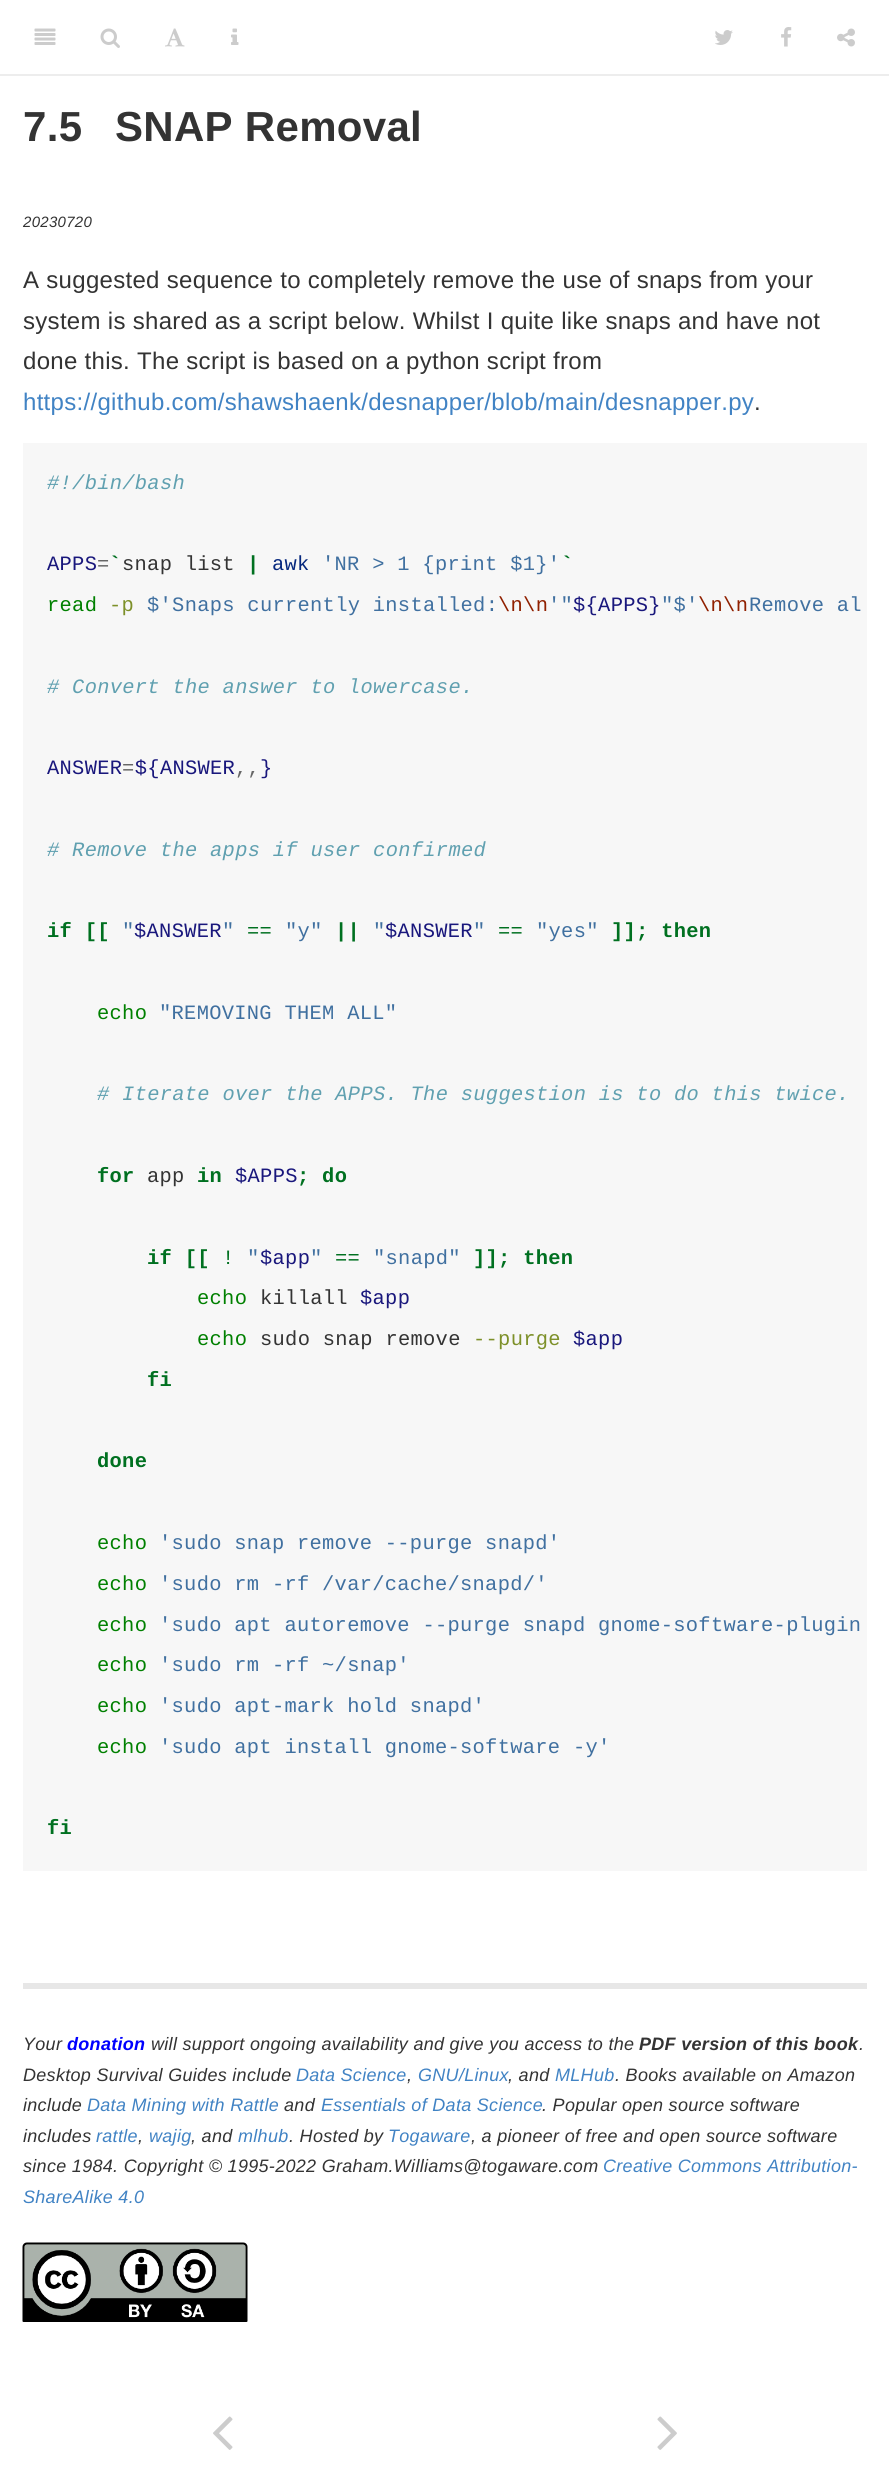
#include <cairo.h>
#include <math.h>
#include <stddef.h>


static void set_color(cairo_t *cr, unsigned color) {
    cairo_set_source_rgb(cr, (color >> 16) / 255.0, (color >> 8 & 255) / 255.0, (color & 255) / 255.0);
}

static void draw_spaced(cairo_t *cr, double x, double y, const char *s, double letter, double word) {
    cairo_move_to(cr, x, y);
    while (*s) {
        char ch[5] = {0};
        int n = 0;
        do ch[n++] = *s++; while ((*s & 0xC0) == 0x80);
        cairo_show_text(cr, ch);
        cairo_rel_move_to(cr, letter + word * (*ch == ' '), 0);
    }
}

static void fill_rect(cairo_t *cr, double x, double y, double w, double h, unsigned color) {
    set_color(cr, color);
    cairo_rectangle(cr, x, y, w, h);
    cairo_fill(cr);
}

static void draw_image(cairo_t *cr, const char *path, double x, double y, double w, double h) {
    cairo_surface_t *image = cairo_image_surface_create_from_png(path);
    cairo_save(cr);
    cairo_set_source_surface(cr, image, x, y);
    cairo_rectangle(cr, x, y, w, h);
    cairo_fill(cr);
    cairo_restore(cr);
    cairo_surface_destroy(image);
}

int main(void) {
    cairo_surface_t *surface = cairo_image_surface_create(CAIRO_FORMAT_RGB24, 889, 2479);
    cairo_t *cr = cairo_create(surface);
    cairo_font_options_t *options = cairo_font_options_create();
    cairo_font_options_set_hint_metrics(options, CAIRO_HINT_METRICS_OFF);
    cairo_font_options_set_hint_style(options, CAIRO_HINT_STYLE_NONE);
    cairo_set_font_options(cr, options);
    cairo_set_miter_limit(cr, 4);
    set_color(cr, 0xFFFFFF);
    cairo_paint(cr);
    fill_rect(cr, 0, 74, 889, 2, 0xEDEDED);
    draw_image(cr, "assets/img1.png", 34, 28, 22, 17);
    draw_image(cr, "assets/img2.png", 100, 28, 20, 20);
    draw_image(cr, "assets/img3.png", 165, 28, 20, 19);
    draw_image(cr, "assets/img4.png", 231, 28, 8, 17);
    draw_image(cr, "assets/img5.png", 715, 30, 18, 15);
    draw_image(cr, "assets/img6.png", 781, 27, 11, 20);
    draw_image(cr, "assets/img7.png", 837, 28, 18, 19);
    cairo_select_font_face(cr, "Liberation Sans", CAIRO_FONT_SLANT_NORMAL, CAIRO_FONT_WEIGHT_BOLD);
    cairo_set_font_size(cr, 42);
    set_color(cr, 0x333333);
    draw_spaced(cr, 23, 141, "7.5", 0.3, 0);
    draw_spaced(cr, 115, 141, "SNAP Removal", 0.3, 0);
    cairo_select_font_face(cr, "Liberation Sans", CAIRO_FONT_SLANT_ITALIC, CAIRO_FONT_WEIGHT_NORMAL);
    cairo_set_font_size(cr, 15);
    draw_spaced(cr, 23, 227, "20230720", 0.3, 0);
    cairo_select_font_face(cr, "Liberation Sans", CAIRO_FONT_SLANT_NORMAL, CAIRO_FONT_WEIGHT_NORMAL);
    cairo_set_font_size(cr, 24);
    draw_spaced(cr, 23, 288, "A suggested sequence to completely remove the use of snaps from your", 0.3, 0);
    draw_spaced(cr, 23, 329, "system is shared as a script below. Whilst I quite like snaps and have not", 0.3, 0);
    draw_spaced(cr, 23, 369, "done this. The script is based on a python script from", 0.3, 0);
    set_color(cr, 0x4183C4);
    draw_spaced(cr, 23, 410, "https://github.com/shawshaenk/desnapper/blob/main/desnapper.py", 0.3, 0);
    set_color(cr, 0x333333);
    draw_spaced(cr, 754, 410, ".", 0.3, 0);
    fill_rect(cr, 23, 443, 844, 1428, 0xF7F7F7);
    cairo_select_font_face(cr, "Liberation Mono", CAIRO_FONT_SLANT_ITALIC, CAIRO_FONT_WEIGHT_NORMAL);
    cairo_set_font_size(cr, 20.4);
    set_color(cr, 0x60A0B0);
    draw_spaced(cr, 47, 489, "#!/bin/bash", 0.3, 0);
    cairo_select_font_face(cr, "Liberation Mono", CAIRO_FONT_SLANT_NORMAL, CAIRO_FONT_WEIGHT_NORMAL);
    set_color(cr, 0x19177C);
    draw_spaced(cr, 47, 570, "APPS", 0.3, 0);
    set_color(cr, 0x666666);
    draw_spaced(cr, 97, 570, "=", 0.3, 0);
    cairo_select_font_face(cr, "Liberation Mono", CAIRO_FONT_SLANT_NORMAL, CAIRO_FONT_WEIGHT_BOLD);
    set_color(cr, 0x007020);
    draw_spaced(cr, 109, 570, "`", 0.3, 0);
    cairo_select_font_face(cr, "Liberation Mono", CAIRO_FONT_SLANT_NORMAL, CAIRO_FONT_WEIGHT_NORMAL);
    set_color(cr, 0x333333);
    draw_spaced(cr, 122, 570, "snap list", 0.3, 0);
    cairo_select_font_face(cr, "Liberation Mono", CAIRO_FONT_SLANT_NORMAL, CAIRO_FONT_WEIGHT_BOLD);
    set_color(cr, 0x007020);
    draw_spaced(cr, 247, 570, "|", 0.3, 0);
    cairo_select_font_face(cr, "Liberation Mono", CAIRO_FONT_SLANT_NORMAL, CAIRO_FONT_WEIGHT_NORMAL);
    set_color(cr, 0x06287E);
    draw_spaced(cr, 272, 570, "awk", 0.3, 0);
    set_color(cr, 0x4070A0);
    draw_spaced(cr, 322, 570, "'NR > 1 {print $1}'", 0.3, 0);
    cairo_select_font_face(cr, "Liberation Mono", CAIRO_FONT_SLANT_NORMAL, CAIRO_FONT_WEIGHT_BOLD);
    set_color(cr, 0x007020);
    draw_spaced(cr, 561, 570, "`", 0.3, 0);
    cairo_select_font_face(cr, "Liberation Mono", CAIRO_FONT_SLANT_NORMAL, CAIRO_FONT_WEIGHT_NORMAL);
    set_color(cr, 0x008000);
    draw_spaced(cr, 47, 611, "read", 0.3, 0);
    set_color(cr, 0x7D9029);
    draw_spaced(cr, 109, 611, "-p", 0.3, 0);
    set_color(cr, 0x4070A0);
    draw_spaced(cr, 147, 611, "$'Snaps currently installed:", 0.3, 0);
    set_color(cr, 0x902000);
    draw_spaced(cr, 498, 611, "\\n\\n", 0.3, 0);
    set_color(cr, 0x4070A0);
    draw_spaced(cr, 548, 611, "'\"", 0.3, 0);
    set_color(cr, 0x19177C);
    draw_spaced(cr, 573, 611, "${APPS}", 0.3, 0);
    set_color(cr, 0x4070A0);
    draw_spaced(cr, 661, 611, "\"$'", 0.3, 0);
    set_color(cr, 0x902000);
    draw_spaced(cr, 698, 611, "\\n\\n", 0.3, 0);
    set_color(cr, 0x4070A0);
    draw_spaced(cr, 749, 611, "Remove al", 0.3, 0);
    cairo_select_font_face(cr, "Liberation Mono", CAIRO_FONT_SLANT_ITALIC, CAIRO_FONT_WEIGHT_NORMAL);
    set_color(cr, 0x60A0B0);
    draw_spaced(cr, 47, 693, "# Convert the answer to lowercase.", 0.3, 0);
    cairo_select_font_face(cr, "Liberation Mono", CAIRO_FONT_SLANT_NORMAL, CAIRO_FONT_WEIGHT_NORMAL);
    set_color(cr, 0x19177C);
    draw_spaced(cr, 47, 774, "ANSWER ${ANSWER", 0.3, 0);
    draw_spaced(cr, 260, 774, "}", 0.3, 0);
    set_color(cr, 0x666666);
    draw_spaced(cr, 122, 774, "=", 0.3, 0);
    draw_spaced(cr, 235, 774, ",,", 0.3, 0);
    cairo_select_font_face(cr, "Liberation Mono", CAIRO_FONT_SLANT_ITALIC, CAIRO_FONT_WEIGHT_NORMAL);
    set_color(cr, 0x60A0B0);
    draw_spaced(cr, 47, 856, "# Remove the apps if user confirmed", 0.3, 0);
    cairo_select_font_face(cr, "Liberation Mono", CAIRO_FONT_SLANT_NORMAL, CAIRO_FONT_WEIGHT_BOLD);
    set_color(cr, 0x007020);
    draw_spaced(cr, 47, 937, "if [[", 0.3, 0);
    cairo_select_font_face(cr, "Liberation Mono", CAIRO_FONT_SLANT_NORMAL, CAIRO_FONT_WEIGHT_NORMAL);
    set_color(cr, 0x4070A0);
    draw_spaced(cr, 122, 937, "\"", 0.3, 0);
    set_color(cr, 0x19177C);
    draw_spaced(cr, 134, 937, "$ANSWER", 0.3, 0);
    set_color(cr, 0x4070A0);
    draw_spaced(cr, 222, 937, "\"", 0.3, 0);
    set_color(cr, 0x007020);
    draw_spaced(cr, 247, 937, "==", 0.3, 0);
    set_color(cr, 0x4070A0);
    draw_spaced(cr, 285, 937, "\"y\"", 0.3, 0);
    cairo_select_font_face(cr, "Liberation Mono", CAIRO_FONT_SLANT_NORMAL, CAIRO_FONT_WEIGHT_BOLD);
    set_color(cr, 0x007020);
    draw_spaced(cr, 335, 937, "||", 0.3, 0);
    cairo_select_font_face(cr, "Liberation Mono", CAIRO_FONT_SLANT_NORMAL, CAIRO_FONT_WEIGHT_NORMAL);
    set_color(cr, 0x4070A0);
    draw_spaced(cr, 373, 937, "\"", 0.3, 0);
    set_color(cr, 0x19177C);
    draw_spaced(cr, 385, 937, "$ANSWER", 0.3, 0);
    set_color(cr, 0x4070A0);
    draw_spaced(cr, 473, 937, "\"", 0.3, 0);
    set_color(cr, 0x007020);
    draw_spaced(cr, 498, 937, "==", 0.3, 0);
    set_color(cr, 0x4070A0);
    draw_spaced(cr, 536, 937, "\"yes\"", 0.3, 0);
    cairo_select_font_face(cr, "Liberation Mono", CAIRO_FONT_SLANT_NORMAL, CAIRO_FONT_WEIGHT_BOLD);
    set_color(cr, 0x007020);
    draw_spaced(cr, 611, 937, "]]; then", 0.3, 0);
    cairo_select_font_face(cr, "Liberation Mono", CAIRO_FONT_SLANT_NORMAL, CAIRO_FONT_WEIGHT_NORMAL);
    set_color(cr, 0x008000);
    draw_spaced(cr, 97, 1019, "echo", 0.3, 0);
    set_color(cr, 0x4070A0);
    draw_spaced(cr, 159, 1019, "\"REMOVING THEM ALL\"", 0.3, 0);
    cairo_select_font_face(cr, "Liberation Mono", CAIRO_FONT_SLANT_ITALIC, CAIRO_FONT_WEIGHT_NORMAL);
    set_color(cr, 0x60A0B0);
    draw_spaced(cr, 97, 1100, "# Iterate over the APPS. The suggestion is to do this twice.", 0.3, 0);
    cairo_select_font_face(cr, "Liberation Mono", CAIRO_FONT_SLANT_NORMAL, CAIRO_FONT_WEIGHT_BOLD);
    set_color(cr, 0x007020);
    draw_spaced(cr, 97, 1182, "for", 0.3, 0);
    cairo_select_font_face(cr, "Liberation Mono", CAIRO_FONT_SLANT_NORMAL, CAIRO_FONT_WEIGHT_NORMAL);
    set_color(cr, 0x333333);
    draw_spaced(cr, 147, 1182, "app", 0.3, 0);
    cairo_select_font_face(cr, "Liberation Mono", CAIRO_FONT_SLANT_NORMAL, CAIRO_FONT_WEIGHT_BOLD);
    set_color(cr, 0x007020);
    draw_spaced(cr, 197, 1182, "in", 0.3, 0);
    cairo_select_font_face(cr, "Liberation Mono", CAIRO_FONT_SLANT_NORMAL, CAIRO_FONT_WEIGHT_NORMAL);
    set_color(cr, 0x19177C);
    draw_spaced(cr, 235, 1182, "$APPS", 0.3, 0);
    cairo_select_font_face(cr, "Liberation Mono", CAIRO_FONT_SLANT_NORMAL, CAIRO_FONT_WEIGHT_BOLD);
    set_color(cr, 0x007020);
    draw_spaced(cr, 297, 1182, "; do", 0.3, 0);
    draw_spaced(cr, 147, 1264, "if [[", 0.3, 0);
    cairo_select_font_face(cr, "Liberation Mono", CAIRO_FONT_SLANT_NORMAL, CAIRO_FONT_WEIGHT_NORMAL);
    draw_spaced(cr, 222, 1264, "!", 0.3, 0);
    set_color(cr, 0x4070A0);
    draw_spaced(cr, 247, 1264, "\"", 0.3, 0);
    set_color(cr, 0x19177C);
    draw_spaced(cr, 260, 1264, "$app", 0.3, 0);
    set_color(cr, 0x4070A0);
    draw_spaced(cr, 310, 1264, "\"", 0.3, 0);
    set_color(cr, 0x007020);
    draw_spaced(cr, 335, 1264, "==", 0.3, 0);
    set_color(cr, 0x4070A0);
    draw_spaced(cr, 373, 1264, "\"snapd\"", 0.3, 0);
    cairo_select_font_face(cr, "Liberation Mono", CAIRO_FONT_SLANT_NORMAL, CAIRO_FONT_WEIGHT_BOLD);
    set_color(cr, 0x007020);
    draw_spaced(cr, 473, 1264, "]]; then", 0.3, 0);
    cairo_select_font_face(cr, "Liberation Mono", CAIRO_FONT_SLANT_NORMAL, CAIRO_FONT_WEIGHT_NORMAL);
    set_color(cr, 0x008000);
    draw_spaced(cr, 197, 1304, "echo", 0.3, 0);
    set_color(cr, 0x333333);
    draw_spaced(cr, 260, 1304, "killall", 0.3, 0);
    set_color(cr, 0x19177C);
    draw_spaced(cr, 360, 1304, "$app", 0.3, 0);
    set_color(cr, 0x008000);
    draw_spaced(cr, 197, 1345, "echo", 0.3, 0);
    set_color(cr, 0x333333);
    draw_spaced(cr, 260, 1345, "sudo snap remove", 0.3, 0);
    set_color(cr, 0x7D9029);
    draw_spaced(cr, 473, 1345, "--purge", 0.3, 0);
    set_color(cr, 0x19177C);
    draw_spaced(cr, 573, 1345, "$app", 0.3, 0);
    cairo_select_font_face(cr, "Liberation Mono", CAIRO_FONT_SLANT_NORMAL, CAIRO_FONT_WEIGHT_BOLD);
    set_color(cr, 0x007020);
    draw_spaced(cr, 147, 1386, "fi", 0.3, 0);
    draw_spaced(cr, 97, 1467, "done", 0.3, 0);
    cairo_select_font_face(cr, "Liberation Mono", CAIRO_FONT_SLANT_NORMAL, CAIRO_FONT_WEIGHT_NORMAL);
    set_color(cr, 0x008000);
    draw_spaced(cr, 97, 1549, "echo", 0.3, 0);
    set_color(cr, 0x4070A0);
    draw_spaced(cr, 159, 1549, "'sudo snap remove --purge snapd'", 0.3, 0);
    set_color(cr, 0x008000);
    draw_spaced(cr, 97, 1590, "echo", 0.3, 0);
    set_color(cr, 0x4070A0);
    draw_spaced(cr, 159, 1590, "'sudo rm -rf /var/cache/snapd/'", 0.3, 0);
    set_color(cr, 0x008000);
    draw_spaced(cr, 97, 1631, "echo", 0.3, 0);
    set_color(cr, 0x4070A0);
    draw_spaced(cr, 159, 1631, "'sudo apt autoremove --purge snapd gnome-software-plugin", 0.3, 0);
    set_color(cr, 0x008000);
    draw_spaced(cr, 97, 1671, "echo", 0.3, 0);
    set_color(cr, 0x4070A0);
    draw_spaced(cr, 159, 1671, "'sudo rm -rf ~/snap'", 0.3, 0);
    set_color(cr, 0x008000);
    draw_spaced(cr, 97, 1712, "echo", 0.3, 0);
    set_color(cr, 0x4070A0);
    draw_spaced(cr, 159, 1712, "'sudo apt-mark hold snapd'", 0.3, 0);
    set_color(cr, 0x008000);
    draw_spaced(cr, 97, 1753, "echo", 0.3, 0);
    set_color(cr, 0x4070A0);
    draw_spaced(cr, 159, 1753, "'sudo apt install gnome-software -y'", 0.3, 0);
    cairo_select_font_face(cr, "Liberation Mono", CAIRO_FONT_SLANT_NORMAL, CAIRO_FONT_WEIGHT_BOLD);
    set_color(cr, 0x007020);
    draw_spaced(cr, 47, 1834, "fi", 0.3, 0);
    fill_rect(cr, 23, 1983, 844, 6, 0xE7E7E7);
    cairo_select_font_face(cr, "Liberation Sans", CAIRO_FONT_SLANT_ITALIC, CAIRO_FONT_WEIGHT_NORMAL);
    cairo_set_font_size(cr, 18);
    set_color(cr, 0x333333);
    draw_spaced(cr, 23, 2050, "Your", 0.3, 0);
    cairo_select_font_face(cr, "Liberation Sans", CAIRO_FONT_SLANT_ITALIC, CAIRO_FONT_WEIGHT_BOLD);
    set_color(cr, 0x0000FF);
    draw_spaced(cr, 67, 2050, "donation", 0.3, 0);
    cairo_select_font_face(cr, "Liberation Sans", CAIRO_FONT_SLANT_ITALIC, CAIRO_FONT_WEIGHT_NORMAL);
    set_color(cr, 0x333333);
    draw_spaced(cr, 151, 2050, "will support ongoing availability and give you access to the", 0.3, 0);
    cairo_select_font_face(cr, "Liberation Sans", CAIRO_FONT_SLANT_ITALIC, CAIRO_FONT_WEIGHT_BOLD);
    draw_spaced(cr, 639, 2050, "PDF version of this book", 0.3, 0);
    cairo_select_font_face(cr, "Liberation Sans", CAIRO_FONT_SLANT_ITALIC, CAIRO_FONT_WEIGHT_NORMAL);
    draw_spaced(cr, 859, 2050, ".", 0.3, 0);
    draw_spaced(cr, 23, 2081, "Desktop Survival Guides include", 0.3, 0);
    set_color(cr, 0x4183C4);
    draw_spaced(cr, 296, 2081, "Data Science", 0.3, 0);
    set_color(cr, 0x333333);
    draw_spaced(cr, 407, 2081, ",", 0.3, 0);
    set_color(cr, 0x4183C4);
    draw_spaced(cr, 418, 2081, "GNU/Linux", 0.3, 0);
    set_color(cr, 0x333333);
    draw_spaced(cr, 508, 2081, ", and", 0.3, 0);
    set_color(cr, 0x4183C4);
    draw_spaced(cr, 555, 2081, "MLHub", 0.3, 0);
    set_color(cr, 0x333333);
    draw_spaced(cr, 615, 2081, ". Books available on Amazon", 0.3, 0);
    draw_spaced(cr, 23, 2111, "include", 0.3, 0);
    set_color(cr, 0x4183C4);
    draw_spaced(cr, 87, 2111, "Data Mining with Rattle", 0.3, 0);
    set_color(cr, 0x333333);
    draw_spaced(cr, 284, 2111, "and", 0.3, 0);
    set_color(cr, 0x4183C4);
    draw_spaced(cr, 321, 2111, "Essentials of Data Science", 0.3, 0);
    set_color(cr, 0x333333);
    draw_spaced(cr, 542, 2111, ". Popular open source software", 0.3, 0);
    draw_spaced(cr, 23, 2142, "includes", 0.3, 0);
    set_color(cr, 0x4183C4);
    draw_spaced(cr, 96, 2142, "rattle", 0.3, 0);
    set_color(cr, 0x333333);
    draw_spaced(cr, 138, 2142, ",", 0.3, 0);
    set_color(cr, 0x4183C4);
    draw_spaced(cr, 149, 2142, "wajig", 0.3, 0);
    set_color(cr, 0x333333);
    draw_spaced(cr, 191, 2142, ", and", 0.3, 0);
    set_color(cr, 0x4183C4);
    draw_spaced(cr, 238, 2142, "mlhub", 0.3, 0);
    set_color(cr, 0x333333);
    draw_spaced(cr, 289, 2142, ". Hosted by", 0.3, 0);
    set_color(cr, 0x4183C4);
    draw_spaced(cr, 388, 2142, "Togaware", 0.3, 0);
    set_color(cr, 0x333333);
    draw_spaced(cr, 471, 2142, ", a pioneer of free and open source software", 0.3, 0);
    draw_spaced(cr, 23, 2172, "since 1984. Copyright © 1995-2022 Graham.Williams@togaware.com", 0.3, 0);
    set_color(cr, 0x4183C4);
    draw_spaced(cr, 603, 2172, "Creative Commons Attribution-", 0.3, 0);
    draw_spaced(cr, 23, 2203, "ShareAlike 4.0", 0.3, 0);
    draw_image(cr, "assets/img8.png", 22, 2242, 226, 80);
    draw_image(cr, "assets/img9.png", 213, 2416, 20, 34);
    draw_image(cr, "assets/img10.png", 657, 2416, 20, 34);
    cairo_surface_write_to_png(surface, "output.png");
    cairo_font_options_destroy(options);
    cairo_destroy(cr);
    cairo_surface_destroy(surface);
    return 0;
}
